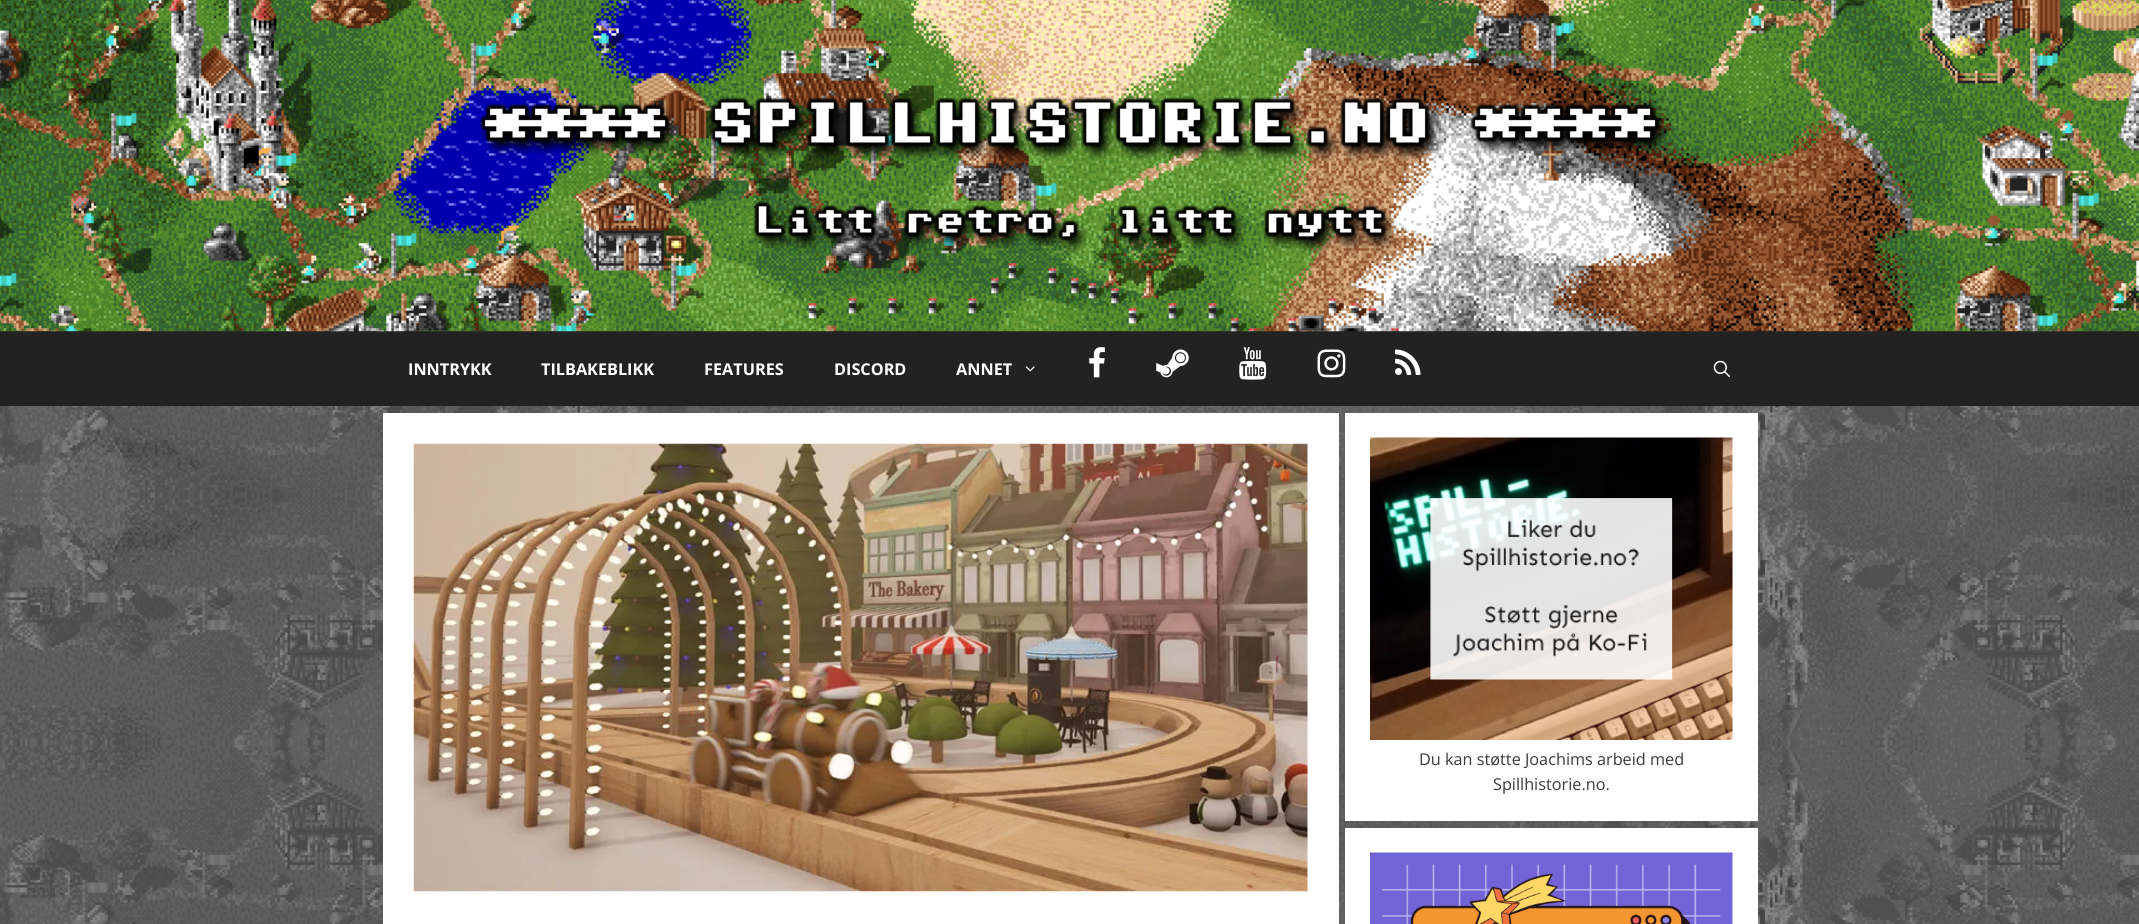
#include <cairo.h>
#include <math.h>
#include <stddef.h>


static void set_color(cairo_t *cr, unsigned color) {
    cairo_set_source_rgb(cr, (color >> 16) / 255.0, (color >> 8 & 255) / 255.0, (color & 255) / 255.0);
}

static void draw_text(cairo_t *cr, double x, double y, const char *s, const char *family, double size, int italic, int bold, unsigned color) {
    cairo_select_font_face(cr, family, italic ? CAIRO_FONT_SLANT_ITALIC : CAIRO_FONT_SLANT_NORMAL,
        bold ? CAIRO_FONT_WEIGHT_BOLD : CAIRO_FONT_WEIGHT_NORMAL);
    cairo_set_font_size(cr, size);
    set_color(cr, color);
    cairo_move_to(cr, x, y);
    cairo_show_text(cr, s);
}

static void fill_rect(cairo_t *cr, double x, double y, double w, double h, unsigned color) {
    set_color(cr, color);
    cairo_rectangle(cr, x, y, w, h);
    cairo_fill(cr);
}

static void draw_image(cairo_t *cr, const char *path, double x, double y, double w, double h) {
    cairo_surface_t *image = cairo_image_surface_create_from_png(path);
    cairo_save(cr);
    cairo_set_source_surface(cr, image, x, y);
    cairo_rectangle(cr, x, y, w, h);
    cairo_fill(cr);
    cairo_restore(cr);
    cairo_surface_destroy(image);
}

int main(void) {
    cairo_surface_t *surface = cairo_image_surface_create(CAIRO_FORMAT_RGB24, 2139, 924);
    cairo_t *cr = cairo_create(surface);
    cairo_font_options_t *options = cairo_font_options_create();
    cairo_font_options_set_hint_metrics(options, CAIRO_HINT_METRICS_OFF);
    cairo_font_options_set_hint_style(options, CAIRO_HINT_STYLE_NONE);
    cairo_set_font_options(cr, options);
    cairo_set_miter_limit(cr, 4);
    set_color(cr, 0x5B5B5B);
    cairo_paint(cr);
    draw_image(cr, "assets/img1.png", 0, 406, 2139, 518);
    fill_rect(cr, 0, 331, 2139, 75, 0x222222);
    draw_image(cr, "assets/img2.png", 0, 0, 2139, 332);
    draw_image(cr, "assets/img3.png", 479, 97, 1191, 158);
    draw_text(cr, 408, 375, "INNTRYKK", "Open Sans", 16.25, 0, 1, 0xFFFFFF);
    draw_text(cr, 541, 375, "TILBAKEBLIKK", "Open Sans", 16.25, 0, 1, 0xFFFFFF);
    draw_text(cr, 704, 375, "FEATURES", "Open Sans", 16.25, 0, 1, 0xFFFFFF);
    draw_text(cr, 834, 375, "DISCORD", "Open Sans", 16.25, 0, 1, 0xFFFFFF);
    draw_text(cr, 956, 375, "ANNET", "Open Sans", 16.25, 0, 1, 0xFFFFFF);
    draw_image(cr, "assets/img4.png", 1025, 366, 10, 6);
    draw_image(cr, "assets/img5.png", 1089, 347, 16, 31);
    draw_image(cr, "assets/img6.png", 1156, 349, 33, 29);
    draw_image(cr, "assets/img7.png", 1239, 347, 28, 33);
    draw_image(cr, "assets/img8.png", 1317, 349, 29, 29);
    draw_image(cr, "assets/img9.png", 1395, 349, 26, 26);
    draw_image(cr, "assets/img10.png", 1713, 360, 17, 17);
    fill_rect(cr, 383, 413, 956, 511, 0xFFFFFF);
    draw_image(cr, "assets/img11.png", 413, 443, 895, 449);
    fill_rect(cr, 1345, 413, 413, 408, 0xFFFFFF);
    draw_image(cr, "assets/img12.png", 1370, 437, 363, 303);
    draw_text(cr, 1419, 765, "Du kan støtte Joachims arbeid med", "Open Sans", 16.25, 0, 0, 0x3A3A3A);
    draw_text(cr, 1493, 790, "Spillhistorie.no.", "Open Sans", 16.25, 0, 0, 0x3A3A3A);
    fill_rect(cr, 1345, 828, 413, 96, 0xFFFFFF);
    draw_image(cr, "assets/img13.png", 1370, 852, 363, 72);
    cairo_surface_write_to_png(surface, "output.png");
    cairo_font_options_destroy(options);
    cairo_destroy(cr);
    cairo_surface_destroy(surface);
    return 0;
}
